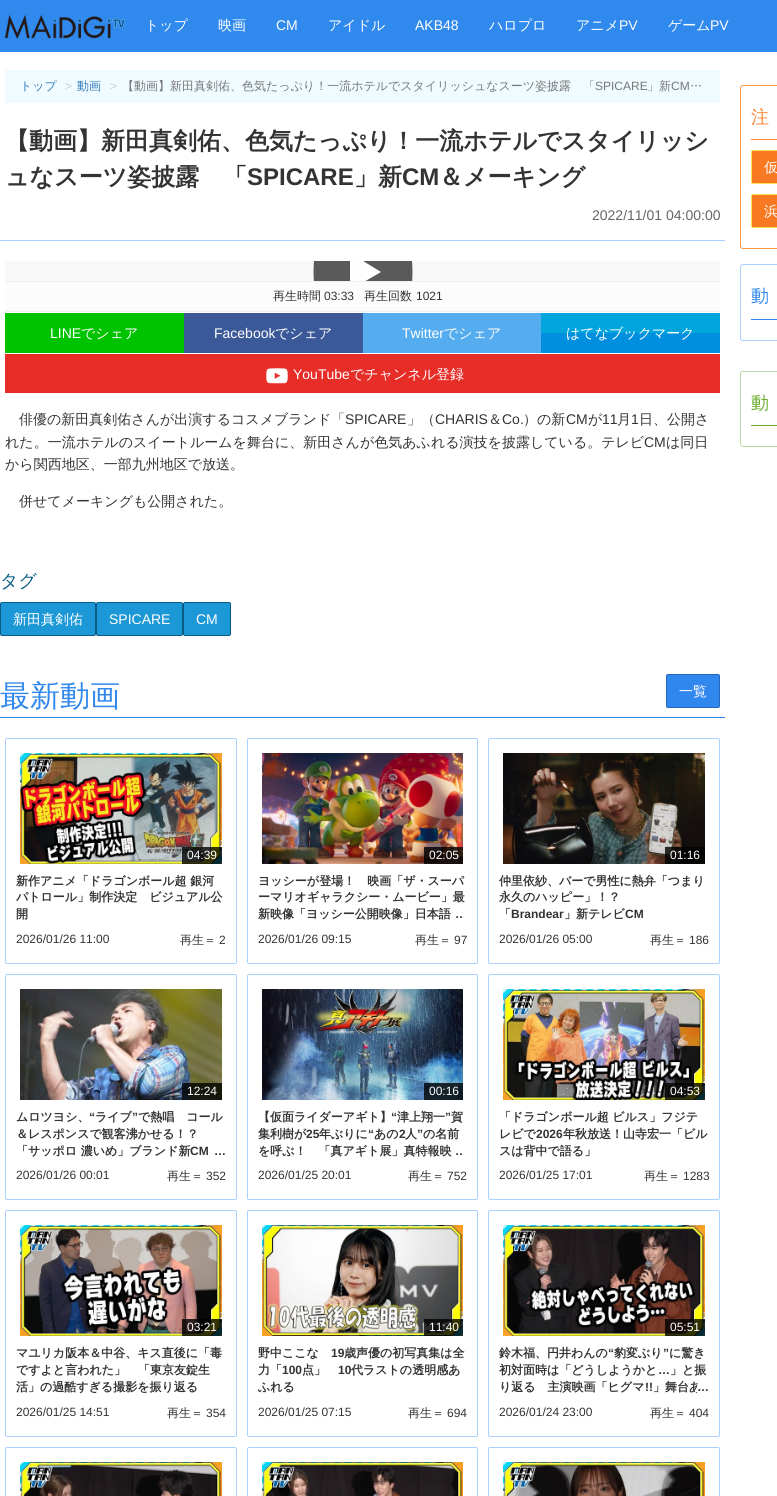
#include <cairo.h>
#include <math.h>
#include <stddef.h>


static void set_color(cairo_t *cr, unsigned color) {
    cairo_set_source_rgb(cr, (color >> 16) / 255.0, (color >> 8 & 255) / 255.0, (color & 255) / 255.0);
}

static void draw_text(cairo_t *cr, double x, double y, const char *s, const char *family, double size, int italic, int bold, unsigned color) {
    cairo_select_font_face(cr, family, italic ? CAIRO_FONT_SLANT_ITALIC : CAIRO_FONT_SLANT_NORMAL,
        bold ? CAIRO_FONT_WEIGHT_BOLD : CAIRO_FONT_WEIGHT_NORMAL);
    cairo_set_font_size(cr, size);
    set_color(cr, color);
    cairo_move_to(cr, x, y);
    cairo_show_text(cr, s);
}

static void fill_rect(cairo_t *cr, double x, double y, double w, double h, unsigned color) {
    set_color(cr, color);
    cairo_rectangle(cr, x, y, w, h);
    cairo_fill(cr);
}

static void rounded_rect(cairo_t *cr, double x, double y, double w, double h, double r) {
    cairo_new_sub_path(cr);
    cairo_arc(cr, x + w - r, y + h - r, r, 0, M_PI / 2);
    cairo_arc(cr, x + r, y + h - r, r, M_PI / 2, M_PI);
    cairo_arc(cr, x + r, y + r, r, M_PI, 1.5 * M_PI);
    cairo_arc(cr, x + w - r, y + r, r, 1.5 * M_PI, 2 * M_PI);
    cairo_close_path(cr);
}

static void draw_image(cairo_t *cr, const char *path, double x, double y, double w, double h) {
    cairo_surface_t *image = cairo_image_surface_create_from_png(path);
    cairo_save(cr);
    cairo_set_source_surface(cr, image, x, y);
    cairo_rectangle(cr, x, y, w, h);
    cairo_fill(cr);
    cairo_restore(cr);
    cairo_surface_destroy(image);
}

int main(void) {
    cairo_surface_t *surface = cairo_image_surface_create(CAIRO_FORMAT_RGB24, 777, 1496);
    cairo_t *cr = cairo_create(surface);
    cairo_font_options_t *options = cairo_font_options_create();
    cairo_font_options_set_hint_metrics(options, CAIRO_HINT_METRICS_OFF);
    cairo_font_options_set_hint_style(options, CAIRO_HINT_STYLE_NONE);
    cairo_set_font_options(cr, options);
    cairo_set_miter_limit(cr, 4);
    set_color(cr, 0xFFFFFF);
    cairo_paint(cr);
    fill_rect(cr, 0, 0, 777, 52, 0x3089ED);
    draw_image(cr, "assets/img1.png", 5, 15, 120, 24);
    draw_text(cr, 145, 30, "トップ", "WenQuanYi Zen Hei Medium", 14, 0, 0, 0xFFFFFF);
    draw_text(cr, 218, 30, "映画", "WenQuanYi Zen Hei Medium", 14, 0, 0, 0xFFFFFF);
    draw_text(cr, 276, 30, "CM", "Liberation Sans", 14, 0, 0, 0xFFFFFF);
    draw_text(cr, 328, 30, "アイドル", "WenQuanYi Zen Hei Medium", 14, 0, 0, 0xFFFFFF);
    draw_text(cr, 415, 30, "AKB48", "Liberation Sans", 14, 0, 0, 0xFFFFFF);
    draw_text(cr, 489, 30, "ハロプロ", "WenQuanYi Zen Hei Medium", 14, 0, 0, 0xFFFFFF);
    draw_text(cr, 576, 30, "アニメ", "WenQuanYi Zen Hei Medium", 14, 0, 0, 0xFFFFFF);
    draw_text(cr, 619, 30, "PV", "Liberation Sans", 14, 0, 0, 0xFFFFFF);
    draw_text(cr, 668, 30, "ゲーム", "WenQuanYi Zen Hei Medium", 14, 0, 0, 0xFFFFFF);
    draw_text(cr, 710, 30, "PV", "Liberation Sans", 14, 0, 0, 0xFFFFFF);
    fill_rect(cr, 0, 240, 725, 1, 0xAAD1FF);
    set_color(cr, 0xEFFBFF);
    rounded_rect(cr, 5, 70, 715, 33, 2);
    cairo_fill(cr);
    draw_text(cr, 20, 90, "トップ", "WenQuanYi Zen Hei Medium", 12, 0, 0, 0x337AB7);
    draw_text(cr, 65, 90, ">", "Liberation Sans", 12, 0, 0, 0xCCCCCC);
    draw_text(cr, 77, 90, "動画", "WenQuanYi Zen Hei Medium", 12, 0, 0, 0x337AB7);
    draw_text(cr, 110, 90, ">", "Liberation Sans", 12, 0, 0, 0xCCCCCC);
    draw_text(cr, 122, 90, "【動画】新田真剣佑、色気たっぷり！一流ホテルでスタイリッシュなスーツ姿披露　「", "WenQuanYi Zen Hei Medium", 12, 0, 0, 0x777777);
    draw_text(cr, 595, 90, "SPICARE", "Liberation Sans", 12, 0, 0, 0x777777);
    draw_text(cr, 647, 90, "」新", "WenQuanYi Zen Hei Medium", 12, 0, 0, 0x777777);
    draw_text(cr, 671, 90, "CM", "Liberation Sans", 12, 0, 0, 0x777777);
    draw_text(cr, 690, 90, "…", "WenQuanYi Zen Hei Medium", 12, 0, 0, 0x777777);
    draw_text(cr, 5, 149, "【動画】新田真剣佑、色気たっぷり！一流ホテルでスタイリッシ", "WenQuanYi Zen Hei", 24, 0, 1, 0x333333);
    draw_text(cr, 5, 185, "ュなスーツ姿披露　「", "WenQuanYi Zen Hei", 24, 0, 1, 0x333333);
    draw_text(cr, 247, 185, "SPICARE", "Liberation Sans", 24, 0, 1, 0x333333);
    draw_text(cr, 354, 185, "」新", "WenQuanYi Zen Hei", 24, 0, 1, 0x333333);
    draw_text(cr, 402, 185, "CM", "Liberation Sans", 24, 0, 1, 0x333333);
    draw_text(cr, 439, 185, "＆メーキング", "WenQuanYi Zen Hei", 24, 0, 1, 0x333333);
    draw_text(cr, 592, 220, "2022/11/01 04:00:00", "Liberation Sans", 14, 0, 0, 0x666666);
    fill_rect(cr, 5, 261, 715, 20, 0xF8F8F8);
    fill_rect(cr, 350, 261, 31, 20, 0xFEFEFE);
    cairo_save(cr);
    cairo_rectangle(cr, 313, 261, 100, 20);
    cairo_clip(cr);
    set_color(cr, 0x5A5A5A);
    cairo_new_path(cr);
    cairo_move_to(cr, 350, 290);
    cairo_line_to(cr, 350, 253);
    cairo_line_to(cr, 381, 272);
    cairo_close_path(cr);
    cairo_move_to(cr, 408, 238);
    cairo_curve_to(cr, 378, 234, 347, 234, 318, 238);
    cairo_curve_to(cr, 312, 260, 312, 284, 318, 306);
    cairo_curve_to(cr, 347, 310, 378, 310, 408, 306);
    cairo_curve_to(cr, 414, 284, 414, 260, 408, 238);
    cairo_close_path(cr);
    cairo_fill(cr);
    cairo_restore(cr);
    fill_rect(cr, 5, 282, 715, 29, 0xFCFCFC);
    fill_rect(cr, 5, 281, 715, 1, 0xEFEFEF);
    fill_rect(cr, 5, 311, 715, 1, 0xEFEFEF);
    draw_text(cr, 273, 300, "再生時間", "WenQuanYi Zen Hei Medium", 12, 0, 0, 0x333333);
    draw_text(cr, 324, 300, "03:33", "Liberation Sans", 12, 0, 0, 0x333333);
    draw_text(cr, 364, 300, "再生回数", "WenQuanYi Zen Hei Medium", 12, 0, 0, 0x333333);
    draw_text(cr, 416, 300, "1021", "Liberation Sans", 12, 0, 0, 0x333333);
    fill_rect(cr, 5, 313, 179, 40, 0x00C300);
    draw_text(cr, 50, 338, "LINE", "Liberation Sans", 14, 0, 0, 0xFFFFFF);
    draw_text(cr, 81, 338, "でシェア", "WenQuanYi Zen Hei Medium", 14, 0, 0, 0xFFFFFF);
    fill_rect(cr, 184, 313, 179, 40, 0x3B5998);
    draw_text(cr, 214, 338, "Facebook", "Liberation Sans", 14, 0, 0, 0xFFFFFF);
    draw_text(cr, 275, 338, "でシェア", "WenQuanYi Zen Hei Medium", 14, 0, 0, 0xFFFFFF);
    fill_rect(cr, 363, 313, 178, 40, 0x55ACEE);
    draw_text(cr, 402, 338, "Twitter", "Liberation Sans", 14, 0, 0, 0xFFFFFF);
    draw_text(cr, 444, 338, "でシェア", "WenQuanYi Zen Hei Medium", 14, 0, 0, 0xFFFFFF);
    fill_rect(cr, 541, 313, 179, 20, 0x00A5DE);
    fill_rect(cr, 541, 333, 179, 20, 0x008FDE);
    draw_text(cr, 566, 338, "はてなブックマーク", "WenQuanYi Zen Hei Medium", 14, 0, 0, 0xFFFFFF);
    fill_rect(cr, 5, 354, 715, 39, 0xE62D28);
    draw_image(cr, "assets/img2.png", 266, 368, 22, 16);
    draw_text(cr, 293, 379, "YouTube", "Liberation Sans", 14, 0, 0, 0xFFFFFF);
    draw_text(cr, 350, 379, "でチャンネル登録", "WenQuanYi Zen Hei Medium", 14, 0, 0, 0xFFFFFF);
    draw_text(cr, 19, 424, "俳優の新田真剣佑さんが出演するコスメブランド「", "WenQuanYi Zen Hei Medium", 14, 0, 0, 0x333333);
    draw_text(cr, 345, 424, "SPICARE", "Liberation Sans", 14, 0, 0, 0x333333);
    draw_text(cr, 407, 424, "」（", "WenQuanYi Zen Hei Medium", 14, 0, 0, 0x333333);
    draw_text(cr, 435, 424, "CHARIS", "Liberation Sans", 14, 0, 0, 0x333333);
    draw_text(cr, 488, 424, "＆", "WenQuanYi Zen Hei Medium", 14, 0, 0, 0x333333);
    draw_text(cr, 502, 424, "Co.", "Liberation Sans", 14, 0, 0, 0x333333);
    draw_text(cr, 523, 424, "）の新", "WenQuanYi Zen Hei Medium", 14, 0, 0, 0x333333);
    draw_text(cr, 566, 424, "CM", "Liberation Sans", 14, 0, 0, 0x333333);
    draw_text(cr, 588, 424, "が", "WenQuanYi Zen Hei Medium", 14, 0, 0, 0x333333);
    draw_text(cr, 602, 424, "11", "Liberation Sans", 14, 0, 0, 0x333333);
    draw_text(cr, 617, 424, "月", "WenQuanYi Zen Hei Medium", 14, 0, 0, 0x333333);
    draw_text(cr, 631, 424, "1", "Liberation Sans", 14, 0, 0, 0x333333);
    draw_text(cr, 639, 424, "日、公開さ", "WenQuanYi Zen Hei Medium", 14, 0, 0, 0x333333);
    draw_text(cr, 5, 447, "れた。一流ホテルのスイートルームを舞台に、新田さんが色気あふれる演技を披露している。テレビ", "WenQuanYi Zen Hei Medium", 14, 0, 0, 0x333333);
    draw_text(cr, 644, 447, "CM", "Liberation Sans", 14, 0, 0, 0x333333);
    draw_text(cr, 666, 447, "は同日", "WenQuanYi Zen Hei Medium", 14, 0, 0, 0x333333);
    draw_text(cr, 5, 469, "から関西地区、一部九州地区で放送。", "WenQuanYi Zen Hei Medium", 14, 0, 0, 0x333333);
    draw_text(cr, 19, 506, "併せてメーキングも公開された。", "WenQuanYi Zen Hei Medium", 14, 0, 0, 0x333333);
    draw_text(cr, 0, 587, "タグ", "WenQuanYi Zen Hei Medium", 18, 0, 0, 0x095B84);
    set_color(cr, 0x1D98D6);
    rounded_rect(cr, 0.5, 602.5, 95, 33, 1.5);
    cairo_fill_preserve(cr);
    set_color(cr, 0x095B84);
    cairo_set_line_width(cr, 1);
    cairo_stroke(cr);
    draw_text(cr, 13, 624, "新田真剣佑", "WenQuanYi Zen Hei Medium", 14, 0, 0, 0xFFFFFF);
    set_color(cr, 0x1D98D6);
    rounded_rect(cr, 96.5, 602.5, 86, 33, 1.5);
    cairo_fill_preserve(cr);
    set_color(cr, 0x095B84);
    cairo_stroke(cr);
    draw_text(cr, 109, 624, "SPICARE", "Liberation Sans", 14, 0, 0, 0xFFFFFF);
    set_color(cr, 0x1D98D6);
    rounded_rect(cr, 183.5, 602.5, 47, 33, 1.5);
    cairo_fill_preserve(cr);
    set_color(cr, 0x095B84);
    cairo_stroke(cr);
    draw_text(cr, 196, 624, "CM", "Liberation Sans", 14, 0, 0, 0xFFFFFF);
    fill_rect(cr, 0, 717, 725, 1, 0x3087ED);
    draw_text(cr, 0, 706, "最新動画", "WenQuanYi Zen Hei Medium", 30, 0, 0, 0x3087ED);
    rounded_rect(cr, 666.5, 674.5, 53, 33, 1.5);
    cairo_fill_preserve(cr);
    set_color(cr, 0x2168BB);
    cairo_stroke(cr);
    draw_text(cr, 679, 696, "一覧", "WenQuanYi Zen Hei Medium", 14, 0, 0, 0xFFFFFF);
    rounded_rect(cr, 5.5, 738.5, 231, 225, 1.5);
    set_color(cr, 0xAAD1FF);
    cairo_stroke(cr);
    draw_image(cr, "assets/img3.png", 20, 753, 202, 111);
    cairo_set_source_rgba(cr, 0, 0, 0, 0.8);
    cairo_rectangle(cr, 182, 847, 40, 17);
    cairo_fill(cr);
    draw_text(cr, 187, 859, "04:39", "Liberation Sans", 12, 0, 0, 0xFFFFFF);
    draw_text(cr, 16, 885, "新作アニメ「ドラゴンボール超 銀河", "WenQuanYi Zen Hei", 12, 0, 1, 0x333333);
    draw_text(cr, 16, 901, "パトロール」制作決定　ビジュアル公", "WenQuanYi Zen Hei", 12, 0, 1, 0x333333);
    draw_text(cr, 16, 918, "開", "WenQuanYi Zen Hei", 12, 0, 1, 0x333333);
    draw_text(cr, 16, 943, "2026/01/26 11:00", "Liberation Sans", 12, 0, 0, 0x333333);
    draw_text(cr, 180, 944, "再生＝", "WenQuanYi Zen Hei Medium", 12, 0, 0, 0x333333);
    draw_text(cr, 219, 944, "2", "Liberation Sans", 12, 0, 0, 0x333333);
    rounded_rect(cr, 247.5, 738.5, 230, 225, 1.5);
    set_color(cr, 0xAAD1FF);
    cairo_stroke(cr);
    draw_image(cr, "assets/img4.png", 262, 753, 201, 111);
    cairo_set_source_rgba(cr, 0, 0, 0, 0.8);
    cairo_rectangle(cr, 424, 847, 39, 17);
    cairo_fill(cr);
    draw_text(cr, 429, 859, "02:05", "Liberation Sans", 12, 0, 0, 0xFFFFFF);
    draw_text(cr, 258, 885, "ヨッシーが登場！　映画「ザ・スーパ", "WenQuanYi Zen Hei", 12, 0, 1, 0x333333);
    draw_text(cr, 258, 901, "ーマリオギャラクシー・ムービー」最", "WenQuanYi Zen Hei", 12, 0, 1, 0x333333);
    draw_text(cr, 258, 918, "新映像「ヨッシー公開映像」日本語", "WenQuanYi Zen Hei", 12, 0, 1, 0x333333);
    draw_text(cr, 455, 918, "…", "Liberation Sans", 12, 0, 1, 0x333333);
    fill_rect(cr, 464, 916, 2, 7, 0xFFFFFF);
    draw_text(cr, 258, 943, "2026/01/26 09:15", "Liberation Sans", 12, 0, 0, 0x333333);
    draw_text(cr, 415, 944, "再生＝", "WenQuanYi Zen Hei Medium", 12, 0, 0, 0x333333);
    draw_text(cr, 454, 944, "97", "Liberation Sans", 12, 0, 0, 0x333333);
    rounded_rect(cr, 488.5, 738.5, 231, 225, 1.5);
    set_color(cr, 0xAAD1FF);
    cairo_stroke(cr);
    draw_image(cr, "assets/img5.png", 503, 753, 202, 111);
    cairo_set_source_rgba(cr, 0, 0, 0, 0.8);
    cairo_rectangle(cr, 665, 847, 40, 17);
    cairo_fill(cr);
    draw_text(cr, 670, 859, "01:16", "Liberation Sans", 12, 0, 0, 0xFFFFFF);
    draw_text(cr, 499, 885, "仲里依紗、バーで男性に熱弁「つまり", "WenQuanYi Zen Hei", 12, 0, 1, 0x333333);
    draw_text(cr, 499, 901, "永久のハッピー」！？", "WenQuanYi Zen Hei", 12, 0, 1, 0x333333);
    draw_text(cr, 499, 918, "「", "WenQuanYi Zen Hei", 12, 0, 1, 0x333333);
    draw_text(cr, 511, 918, "Brandear", "Liberation Sans", 12, 0, 1, 0x333333);
    draw_text(cr, 564, 918, "」新テレビ", "WenQuanYi Zen Hei", 12, 0, 1, 0x333333);
    draw_text(cr, 625, 918, "CM", "Liberation Sans", 12, 0, 1, 0x333333);
    draw_text(cr, 499, 943, "2026/01/26 05:00", "Liberation Sans", 12, 0, 0, 0x333333);
    draw_text(cr, 650, 944, "再生＝", "WenQuanYi Zen Hei Medium", 12, 0, 0, 0x333333);
    draw_text(cr, 689, 944, "186", "Liberation Sans", 12, 0, 0, 0x333333);
    rounded_rect(cr, 5.5, 974.5, 231, 225, 1.5);
    set_color(cr, 0xAAD1FF);
    cairo_stroke(cr);
    draw_image(cr, "assets/img6.png", 20, 989, 202, 111);
    cairo_set_source_rgba(cr, 0, 0, 0, 0.8);
    cairo_rectangle(cr, 182, 1083, 40, 17);
    cairo_fill(cr);
    draw_text(cr, 187, 1095, "12:24", "Liberation Sans", 12, 0, 0, 0xFFFFFF);
    draw_text(cr, 16, 1121, "ムロツヨシ、", "WenQuanYi Zen Hei", 12, 0, 1, 0x333333);
    draw_text(cr, 89, 1121, "“", "Liberation Sans", 12, 0, 1, 0x333333);
    draw_text(cr, 95, 1121, "ライブ", "WenQuanYi Zen Hei", 12, 0, 1, 0x333333);
    draw_text(cr, 132, 1121, "”", "Liberation Sans", 12, 0, 1, 0x333333);
    draw_text(cr, 138, 1121, "で熱唱　コール", "WenQuanYi Zen Hei", 12, 0, 1, 0x333333);
    draw_text(cr, 16, 1138, "＆レスポンスで観客沸かせる！？", "WenQuanYi Zen Hei", 12, 0, 1, 0x333333);
    draw_text(cr, 16, 1155, "「サッポロ 濃いめ」ブランド新", "WenQuanYi Zen Hei", 12, 0, 1, 0x333333);
    draw_text(cr, 190, 1155, "CM", "Liberation Sans", 12, 0, 1, 0x333333);
    draw_text(cr, 214, 1155, "…", "Liberation Sans", 12, 0, 1, 0x333333);
    draw_text(cr, 16, 1179, "2026/01/26 00:01", "Liberation Sans", 12, 0, 0, 0x333333);
    draw_text(cr, 167, 1180, "再生＝", "WenQuanYi Zen Hei Medium", 12, 0, 0, 0x333333);
    draw_text(cr, 206, 1180, "352", "Liberation Sans", 12, 0, 0, 0x333333);
    rounded_rect(cr, 247.5, 974.5, 230, 225, 1.5);
    set_color(cr, 0xAAD1FF);
    cairo_stroke(cr);
    draw_image(cr, "assets/img7.png", 262, 989, 201, 111);
    cairo_set_source_rgba(cr, 0, 0, 0, 0.8);
    cairo_rectangle(cr, 424, 1083, 39, 17);
    cairo_fill(cr);
    draw_text(cr, 429, 1095, "00:16", "Liberation Sans", 12, 0, 0, 0xFFFFFF);
    draw_text(cr, 258, 1121, "【仮面ライダーアギト】", "WenQuanYi Zen Hei", 12, 0, 1, 0x333333);
    draw_text(cr, 391, 1121, "“", "Liberation Sans", 12, 0, 1, 0x333333);
    draw_text(cr, 397, 1121, "津上翔一", "WenQuanYi Zen Hei", 12, 0, 1, 0x333333);
    draw_text(cr, 445, 1121, "”", "Liberation Sans", 12, 0, 1, 0x333333);
    draw_text(cr, 451, 1121, "賀", "WenQuanYi Zen Hei", 12, 0, 1, 0x333333);
    draw_text(cr, 258, 1138, "集利樹が", "WenQuanYi Zen Hei", 12, 0, 1, 0x333333);
    draw_text(cr, 306, 1138, "25", "Liberation Sans", 12, 0, 1, 0x333333);
    draw_text(cr, 319, 1138, "年ぶりに", "WenQuanYi Zen Hei", 12, 0, 1, 0x333333);
    draw_text(cr, 368, 1138, "“", "Liberation Sans", 12, 0, 1, 0x333333);
    draw_text(cr, 374, 1138, "あの", "WenQuanYi Zen Hei", 12, 0, 1, 0x333333);
    draw_text(cr, 399, 1138, "2", "Liberation Sans", 12, 0, 1, 0x333333);
    draw_text(cr, 405, 1138, "人", "WenQuanYi Zen Hei", 12, 0, 1, 0x333333);
    draw_text(cr, 417, 1138, "”", "Liberation Sans", 12, 0, 1, 0x333333);
    draw_text(cr, 423, 1138, "の名前", "WenQuanYi Zen Hei", 12, 0, 1, 0x333333);
    draw_text(cr, 258, 1155, "を呼ぶ！　「真アギト展」真特報映", "WenQuanYi Zen Hei", 12, 0, 1, 0x333333);
    draw_text(cr, 455, 1155, "…", "Liberation Sans", 12, 0, 1, 0x333333);
    fill_rect(cr, 464, 1153, 2, 6, 0xFFFFFF);
    draw_text(cr, 258, 1179, "2026/01/25 20:01", "Liberation Sans", 12, 0, 0, 0x333333);
    draw_text(cr, 408, 1180, "再生＝", "WenQuanYi Zen Hei Medium", 12, 0, 0, 0x333333);
    draw_text(cr, 447, 1180, "752", "Liberation Sans", 12, 0, 0, 0x333333);
    rounded_rect(cr, 488.5, 974.5, 231, 225, 1.5);
    set_color(cr, 0xAAD1FF);
    cairo_stroke(cr);
    draw_image(cr, "assets/img8.png", 503, 989, 202, 111);
    cairo_set_source_rgba(cr, 0, 0, 0, 0.8);
    cairo_rectangle(cr, 665, 1083, 40, 17);
    cairo_fill(cr);
    draw_text(cr, 670, 1095, "04:53", "Liberation Sans", 12, 0, 0, 0xFFFFFF);
    draw_text(cr, 499, 1121, "「ドラゴンボール超 ビルス」フジテ", "WenQuanYi Zen Hei", 12, 0, 1, 0x333333);
    draw_text(cr, 499, 1138, "レビで", "WenQuanYi Zen Hei", 12, 0, 1, 0x333333);
    draw_text(cr, 536, 1138, "2026", "Liberation Sans", 12, 0, 1, 0x333333);
    draw_text(cr, 563, 1138, "年秋放送！山寺宏一「ビル", "WenQuanYi Zen Hei", 12, 0, 1, 0x333333);
    draw_text(cr, 499, 1155, "スは背中で語る」", "WenQuanYi Zen Hei", 12, 0, 1, 0x333333);
    draw_text(cr, 499, 1179, "2026/01/25 17:01", "Liberation Sans", 12, 0, 0, 0x333333);
    draw_text(cr, 644, 1180, "再生＝", "WenQuanYi Zen Hei Medium", 12, 0, 0, 0x333333);
    draw_text(cr, 683, 1180, "1283", "Liberation Sans", 12, 0, 0, 0x333333);
    rounded_rect(cr, 5.5, 1210.5, 231, 226, 1.5);
    set_color(cr, 0xAAD1FF);
    cairo_stroke(cr);
    draw_image(cr, "assets/img9.png", 20, 1225, 202, 111);
    cairo_set_source_rgba(cr, 0, 0, 0, 0.8);
    cairo_rectangle(cr, 182, 1319, 40, 17);
    cairo_fill(cr);
    draw_text(cr, 187, 1331, "03:21", "Liberation Sans", 12, 0, 0, 0xFFFFFF);
    draw_text(cr, 16, 1357, "マユリカ阪本＆中谷、キス直後に「毒", "WenQuanYi Zen Hei", 12, 0, 1, 0x333333);
    draw_text(cr, 16, 1374, "ですよと言われた」　「東京友錠生", "WenQuanYi Zen Hei", 12, 0, 1, 0x333333);
    draw_text(cr, 16, 1391, "活」の過酷すぎる撮影を振り返る", "WenQuanYi Zen Hei", 12, 0, 1, 0x333333);
    draw_text(cr, 16, 1416, "2026/01/25 14:51", "Liberation Sans", 12, 0, 0, 0x333333);
    draw_text(cr, 167, 1417, "再生＝", "WenQuanYi Zen Hei Medium", 12, 0, 0, 0x333333);
    draw_text(cr, 206, 1417, "354", "Liberation Sans", 12, 0, 0, 0x333333);
    rounded_rect(cr, 247.5, 1210.5, 230, 226, 1.5);
    set_color(cr, 0xAAD1FF);
    cairo_stroke(cr);
    draw_image(cr, "assets/img10.png", 262, 1225, 201, 111);
    cairo_set_source_rgba(cr, 0, 0, 0, 0.8);
    cairo_rectangle(cr, 424, 1319, 39, 17);
    cairo_fill(cr);
    draw_text(cr, 429, 1331, "11:40", "Liberation Sans", 12, 0, 0, 0xFFFFFF);
    draw_text(cr, 258, 1357, "野中ここな", "WenQuanYi Zen Hei", 12, 0, 1, 0x333333);
    draw_text(cr, 331, 1357, "19", "Liberation Sans", 12, 0, 1, 0x333333);
    draw_text(cr, 344, 1357, "歳声優の初写真集は全", "WenQuanYi Zen Hei", 12, 0, 1, 0x333333);
    draw_text(cr, 258, 1374, "力「", "WenQuanYi Zen Hei", 12, 0, 1, 0x333333);
    draw_text(cr, 282, 1374, "100", "Liberation Sans", 12, 0, 1, 0x333333);
    draw_text(cr, 302, 1374, "点」", "WenQuanYi Zen Hei", 12, 0, 1, 0x333333);
    draw_text(cr, 338, 1374, "10", "Liberation Sans", 12, 0, 1, 0x333333);
    draw_text(cr, 351, 1374, "代ラストの透明感あ", "WenQuanYi Zen Hei", 12, 0, 1, 0x333333);
    draw_text(cr, 258, 1391, "ふれる", "WenQuanYi Zen Hei", 12, 0, 1, 0x333333);
    draw_text(cr, 258, 1416, "2026/01/25 07:15", "Liberation Sans", 12, 0, 0, 0x333333);
    draw_text(cr, 408, 1417, "再生＝", "WenQuanYi Zen Hei Medium", 12, 0, 0, 0x333333);
    draw_text(cr, 447, 1417, "694", "Liberation Sans", 12, 0, 0, 0x333333);
    rounded_rect(cr, 488.5, 1210.5, 231, 226, 1.5);
    set_color(cr, 0xAAD1FF);
    cairo_stroke(cr);
    draw_image(cr, "assets/img11.png", 503, 1225, 202, 111);
    cairo_set_source_rgba(cr, 0, 0, 0, 0.8);
    cairo_rectangle(cr, 665, 1319, 40, 17);
    cairo_fill(cr);
    draw_text(cr, 670, 1331, "05:51", "Liberation Sans", 12, 0, 0, 0xFFFFFF);
    draw_text(cr, 499, 1357, "鈴木福、円井わんの", "WenQuanYi Zen Hei", 12, 0, 1, 0x333333);
    draw_text(cr, 608, 1357, "“", "Liberation Sans", 12, 0, 1, 0x333333);
    draw_text(cr, 614, 1357, "豹変ぶり", "WenQuanYi Zen Hei", 12, 0, 1, 0x333333);
    draw_text(cr, 663, 1357, "”", "Liberation Sans", 12, 0, 1, 0x333333);
    draw_text(cr, 669, 1357, "に驚き", "WenQuanYi Zen Hei", 12, 0, 1, 0x333333);
    draw_text(cr, 499, 1374, "初対面時は「どうしようかと", "WenQuanYi Zen Hei", 12, 0, 1, 0x333333);
    draw_text(cr, 658, 1374, "…", "Liberation Sans", 12, 0, 1, 0x333333);
    draw_text(cr, 670, 1374, "」と振", "WenQuanYi Zen Hei", 12, 0, 1, 0x333333);
    draw_text(cr, 499, 1391, "り返る　主演映画「ヒグマ", "WenQuanYi Zen Hei", 12, 0, 1, 0x333333);
    draw_text(cr, 645, 1391, "!!", "Liberation Sans", 12, 0, 1, 0x333333);
    draw_text(cr, 653, 1391, "」舞台あ", "WenQuanYi Zen Hei", 12, 0, 1, 0x333333);
    fill_rect(cr, 697, 1386, 3, 7, 0xFFFFFF);
    draw_text(cr, 697, 1391, "…", "Liberation Sans", 12, 0, 1, 0x333333);
    draw_text(cr, 499, 1416, "2026/01/24 23:00", "Liberation Sans", 12, 0, 0, 0x333333);
    draw_text(cr, 650, 1417, "再生＝", "WenQuanYi Zen Hei Medium", 12, 0, 0, 0x333333);
    draw_text(cr, 689, 1417, "404", "Liberation Sans", 12, 0, 0, 0x333333);
    rounded_rect(cr, 5.5, 1447.5, 231, 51, 1.5);
    set_color(cr, 0xAAD1FF);
    cairo_stroke(cr);
    draw_image(cr, "assets/img12.png", 20, 1462, 202, 34);
    rounded_rect(cr, 247.5, 1447.5, 230, 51, 1.5);
    cairo_stroke(cr);
    draw_image(cr, "assets/img13.png", 262, 1462, 201, 34);
    rounded_rect(cr, 488.5, 1447.5, 231, 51, 1.5);
    cairo_stroke(cr);
    draw_image(cr, "assets/img14.png", 503, 1462, 202, 34);
    rounded_rect(cr, 740.5, 85.5, 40, 163, 2.5);
    set_color(cr, 0xFF9840);
    cairo_stroke(cr);
    fill_rect(cr, 751, 139, 26, 1, 0xFF8233);
    draw_text(cr, 751, 123, "注", "WenQuanYi Zen Hei Medium", 18, 0, 0, 0xFF8233);
    set_color(cr, 0xF97822);
    rounded_rect(cr, 751.5, 150.5, 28, 33, 1.5);
    cairo_fill_preserve(cr);
    set_color(cr, 0xFBDF57);
    cairo_stroke(cr);
    draw_text(cr, 764, 172, "仮", "WenQuanYi Zen Hei Medium", 14, 0, 0, 0xFFFFFF);
    set_color(cr, 0xF97822);
    rounded_rect(cr, 751.5, 194.5, 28, 33, 1.5);
    cairo_fill_preserve(cr);
    set_color(cr, 0xFBDF57);
    cairo_stroke(cr);
    draw_text(cr, 764, 216, "浜", "WenQuanYi Zen Hei Medium", 14, 0, 0, 0xFFFFFF);
    rounded_rect(cr, 740.5, 264.5, 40, 76, 2.5);
    set_color(cr, 0xAAD1FF);
    cairo_stroke(cr);
    fill_rect(cr, 751, 319, 26, 1, 0x3087ED);
    draw_text(cr, 751, 302, "動", "WenQuanYi Zen Hei Medium", 18, 0, 0, 0x3087ED);
    rounded_rect(cr, 740.5, 371.5, 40, 75, 2.5);
    set_color(cr, 0xBCD9A5);
    cairo_stroke(cr);
    fill_rect(cr, 751, 425, 26, 1, 0x6EAC2B);
    draw_text(cr, 751, 409, "動", "WenQuanYi Zen Hei Medium", 18, 0, 0, 0x6EAC2B);
    cairo_surface_write_to_png(surface, "output.png");
    cairo_font_options_destroy(options);
    cairo_destroy(cr);
    cairo_surface_destroy(surface);
    return 0;
}
